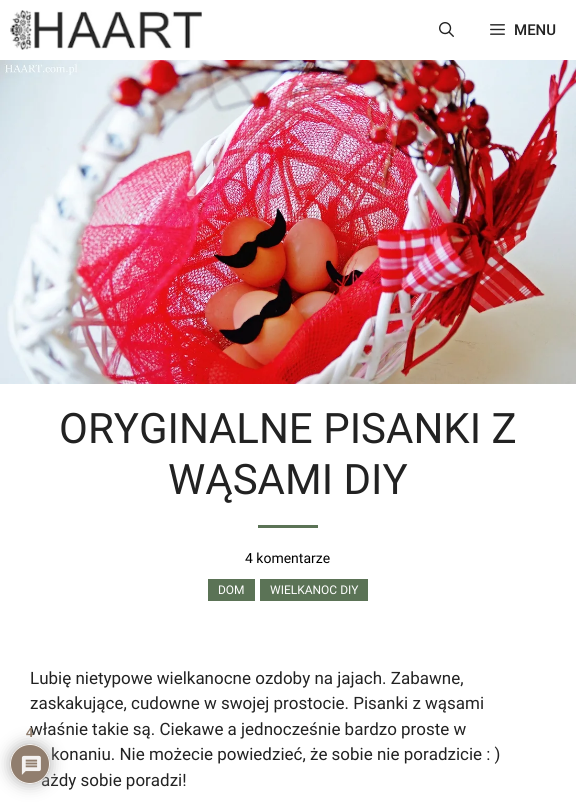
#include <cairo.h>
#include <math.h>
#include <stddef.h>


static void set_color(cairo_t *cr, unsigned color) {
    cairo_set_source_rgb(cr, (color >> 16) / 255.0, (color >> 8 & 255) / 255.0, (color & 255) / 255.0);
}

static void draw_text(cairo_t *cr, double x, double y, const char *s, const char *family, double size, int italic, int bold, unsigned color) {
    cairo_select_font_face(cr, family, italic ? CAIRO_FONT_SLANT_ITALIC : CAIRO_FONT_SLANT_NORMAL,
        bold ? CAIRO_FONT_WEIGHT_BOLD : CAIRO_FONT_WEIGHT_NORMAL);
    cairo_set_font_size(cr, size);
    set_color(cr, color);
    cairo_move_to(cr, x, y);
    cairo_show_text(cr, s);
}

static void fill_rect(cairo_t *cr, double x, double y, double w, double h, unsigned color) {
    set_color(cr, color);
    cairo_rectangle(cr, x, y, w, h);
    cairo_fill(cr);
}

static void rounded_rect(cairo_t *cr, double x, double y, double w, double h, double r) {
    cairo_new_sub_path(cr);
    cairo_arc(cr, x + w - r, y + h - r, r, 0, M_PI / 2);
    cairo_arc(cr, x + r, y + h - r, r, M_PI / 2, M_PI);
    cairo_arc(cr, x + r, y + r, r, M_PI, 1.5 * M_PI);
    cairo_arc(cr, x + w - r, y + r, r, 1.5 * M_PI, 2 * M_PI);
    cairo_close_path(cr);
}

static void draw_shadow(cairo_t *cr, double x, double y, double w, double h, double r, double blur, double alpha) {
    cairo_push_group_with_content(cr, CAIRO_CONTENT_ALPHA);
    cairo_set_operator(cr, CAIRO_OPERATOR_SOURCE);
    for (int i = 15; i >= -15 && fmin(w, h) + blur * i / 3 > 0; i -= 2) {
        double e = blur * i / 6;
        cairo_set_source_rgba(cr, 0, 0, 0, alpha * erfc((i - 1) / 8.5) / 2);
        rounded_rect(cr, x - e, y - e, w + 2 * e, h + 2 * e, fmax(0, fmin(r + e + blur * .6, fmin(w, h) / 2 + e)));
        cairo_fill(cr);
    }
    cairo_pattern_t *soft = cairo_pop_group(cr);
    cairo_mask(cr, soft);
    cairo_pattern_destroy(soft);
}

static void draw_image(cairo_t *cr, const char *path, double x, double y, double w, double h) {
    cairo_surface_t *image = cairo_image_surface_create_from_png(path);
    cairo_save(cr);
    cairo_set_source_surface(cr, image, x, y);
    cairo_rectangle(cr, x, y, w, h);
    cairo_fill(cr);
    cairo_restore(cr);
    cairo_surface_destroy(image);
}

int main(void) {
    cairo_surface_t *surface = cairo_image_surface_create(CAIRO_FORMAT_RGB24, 576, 804);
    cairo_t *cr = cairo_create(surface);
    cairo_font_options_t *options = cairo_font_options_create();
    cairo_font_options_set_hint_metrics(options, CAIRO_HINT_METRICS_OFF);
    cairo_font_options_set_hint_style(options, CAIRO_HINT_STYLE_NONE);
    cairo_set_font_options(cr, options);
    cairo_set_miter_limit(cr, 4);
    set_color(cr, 0xFFFFFF);
    cairo_paint(cr);
    draw_image(cr, "assets/img1.png", 10, 10, 192, 40);
    draw_image(cr, "assets/img2.png", 439, 22, 15, 15);
    draw_image(cr, "assets/img3.png", 490, 24, 15, 11);
    draw_text(cr, 514, 35, "MENU", "Roboto Medium", 15, 0, 0, 0x222222);
    draw_image(cr, "assets/img4.png", 0, 60, 576, 324);
    draw_text(cr, 59, 443, "ORYGINALNE PISANKI Z", "Roboto", 42, 0, 0, 0x222222);
    draw_text(cr, 168, 494, "WĄSAMI DIY", "Roboto", 42, 0, 0, 0x222222);
    fill_rect(cr, 258, 525, 60, 3, 0x5B7356);
    draw_text(cr, 245, 563, "4 komentarze", "Roboto", 14, 0, 0, 0x000000);
    fill_rect(cr, 208, 579, 47, 22, 0x5B7356);
    draw_text(cr, 218, 594, "DOM", "Roboto", 12, 0, 0, 0xFFFFFF);
    fill_rect(cr, 260, 579, 108, 22, 0x5B7356);
    draw_text(cr, 270, 594, "WIELKANOC DIY", "Roboto", 12, 0, 0, 0xFFFFFF);
    draw_text(cr, 30, 684, "Lubię nietypowe wielkanocne ozdoby na jajach. Zabawne,", "Roboto", 17, 0, 0, 0x222222);
    draw_text(cr, 30, 709, "zaskakujące, cudowne w swojej prostocie. Pisanki z wąsami", "Roboto", 17, 0, 0, 0x222222);
    draw_text(cr, 30, 735, "właśnie takie są. Ciekawe a jednocześnie bardzo proste w", "Roboto", 17, 0, 0, 0x222222);
    draw_text(cr, 51, 760, "konaniu. Nie możecie powiedzieć, że sobie nie poradzicie : )", "Roboto", 17, 0, 0, 0x222222);
    draw_text(cr, 41, 786, "ażdy sobie poradzi!", "Roboto", 17, 0, 0, 0x222222);
    cairo_save(cr);
    cairo_set_fill_rule(cr, CAIRO_FILL_RULE_EVEN_ODD);
    cairo_new_path(cr);
    cairo_move_to(cr, 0, 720);
    cairo_line_to(cr, 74, 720);
    cairo_line_to(cr, 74, 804);
    cairo_line_to(cr, 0, 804);
    cairo_close_path(cr);
    cairo_move_to(cr, 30, 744);
    cairo_curve_to(cr, 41, 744, 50, 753, 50, 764);
    cairo_curve_to(cr, 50, 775, 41, 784, 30, 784);
    cairo_curve_to(cr, 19, 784, 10, 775, 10, 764);
    cairo_curve_to(cr, 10, 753, 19, 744, 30, 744);
    cairo_close_path(cr);
    cairo_clip(cr);
    set_color(cr, 0xAAAAAA);
    draw_shadow(cr, 10, 744, 40, 40, 20, 7.5, 0.9);
    cairo_restore(cr);
    cairo_set_source_rgba(cr, 0.522, 0.439, 0.369, 0.9);
    cairo_arc(cr, 30, 764, 20, 0, 2 * M_PI);
    cairo_fill(cr);
    cairo_arc(cr, 30, 764, 19.5, 0, 2 * M_PI);
    cairo_set_source_rgba(cr, 1, 1, 1, 0.9);
    cairo_set_line_width(cr, 1);
    cairo_stroke(cr);
    draw_image(cr, "assets/img5.png", 21, 755, 20, 20);
    draw_text(cr, 26, 737, "4", "Liberation Sans", 13, 0, 1, 0x8E7B6A);
    cairo_surface_write_to_png(surface, "output.png");
    cairo_font_options_destroy(options);
    cairo_destroy(cr);
    cairo_surface_destroy(surface);
    return 0;
}
